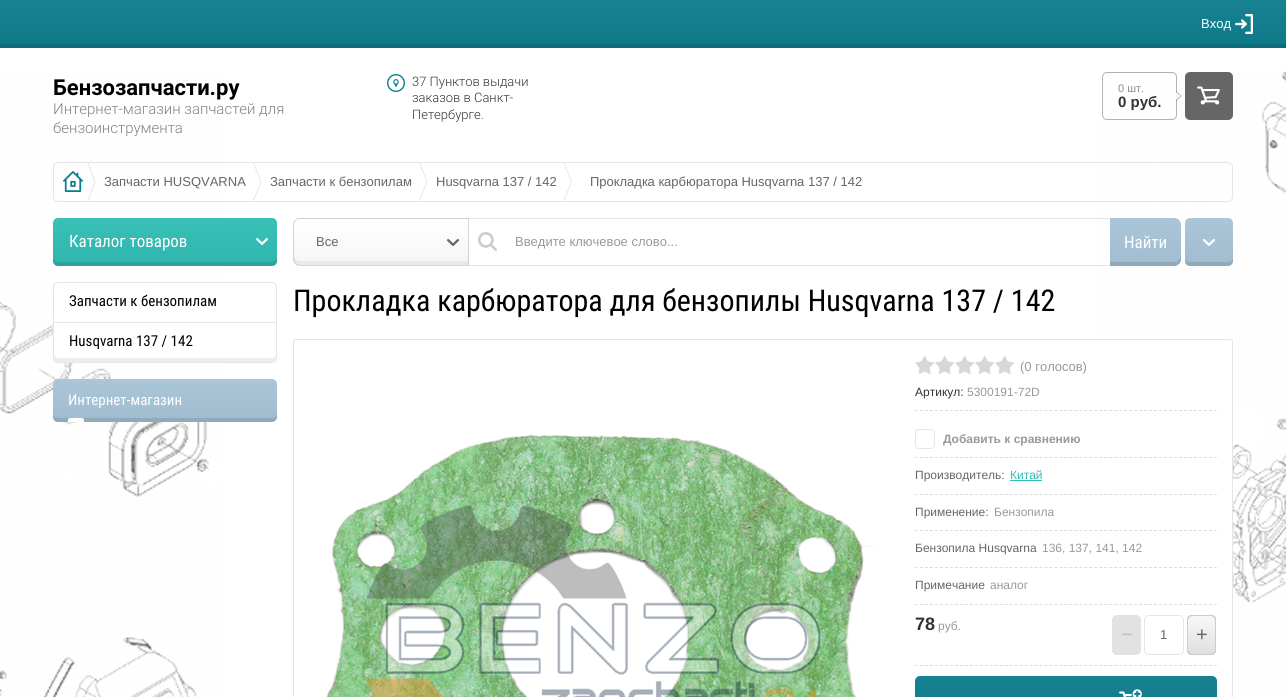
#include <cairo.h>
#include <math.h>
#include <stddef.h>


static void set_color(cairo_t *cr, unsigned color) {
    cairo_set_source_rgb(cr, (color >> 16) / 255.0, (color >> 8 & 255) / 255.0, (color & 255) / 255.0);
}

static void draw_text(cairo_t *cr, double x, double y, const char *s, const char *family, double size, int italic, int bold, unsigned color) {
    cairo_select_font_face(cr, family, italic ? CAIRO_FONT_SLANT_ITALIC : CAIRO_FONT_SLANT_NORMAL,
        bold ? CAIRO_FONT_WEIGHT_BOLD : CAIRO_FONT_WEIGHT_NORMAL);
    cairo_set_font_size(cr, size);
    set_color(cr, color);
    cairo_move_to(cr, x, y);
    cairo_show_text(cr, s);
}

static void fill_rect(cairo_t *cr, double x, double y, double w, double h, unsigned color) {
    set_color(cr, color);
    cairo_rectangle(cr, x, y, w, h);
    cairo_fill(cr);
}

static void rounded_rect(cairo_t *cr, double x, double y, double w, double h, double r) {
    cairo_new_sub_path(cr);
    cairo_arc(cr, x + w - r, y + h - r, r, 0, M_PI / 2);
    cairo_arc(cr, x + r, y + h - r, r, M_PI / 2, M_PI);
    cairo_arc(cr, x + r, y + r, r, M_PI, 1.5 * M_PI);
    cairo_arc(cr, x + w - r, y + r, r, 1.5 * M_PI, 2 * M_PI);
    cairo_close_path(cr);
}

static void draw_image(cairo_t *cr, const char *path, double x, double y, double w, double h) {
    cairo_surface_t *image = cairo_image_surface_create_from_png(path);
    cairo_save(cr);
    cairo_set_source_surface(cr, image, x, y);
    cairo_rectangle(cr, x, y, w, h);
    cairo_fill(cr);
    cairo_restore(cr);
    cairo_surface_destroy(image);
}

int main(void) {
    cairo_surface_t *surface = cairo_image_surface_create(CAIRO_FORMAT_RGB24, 1286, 697);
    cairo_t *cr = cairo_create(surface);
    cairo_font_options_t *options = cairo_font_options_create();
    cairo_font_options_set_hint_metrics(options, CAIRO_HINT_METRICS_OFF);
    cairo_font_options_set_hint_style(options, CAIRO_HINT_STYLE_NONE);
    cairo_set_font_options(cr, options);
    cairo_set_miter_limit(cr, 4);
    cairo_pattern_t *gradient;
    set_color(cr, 0xFFFFFF);
    cairo_paint(cr);
    draw_image(cr, "assets/img1.png", 0, 71, 1286, 626);
    gradient = cairo_pattern_create_linear(643, 48, 643, 0);
    cairo_pattern_add_color_stop_rgba(gradient, 0, 0.051, 0.471, 0.529, 1);
    cairo_pattern_add_color_stop_rgba(gradient, 1, 0.094, 0.51, 0.573, 1);
    cairo_set_source(cr, gradient);
    cairo_pattern_destroy(gradient);
    cairo_rectangle(cr, 0, 0, 1286, 44);
    cairo_fill(cr);
    fill_rect(cr, 0, 44, 1286, 4, 0x0C6C7A);
    draw_text(cr, 1201, 28, "Вход", "Liberation Sans", 13, 0, 0, 0xFFFFFF);
    draw_image(cr, "assets/img2.png", 1235, 14, 18, 20);
    draw_text(cr, 53, 95, "Бензозапчасти.ру", "Roboto", 22, 0, 1, 0x000000);
    draw_text(cr, 53, 114, "Интернет-магазин запчастей для", "Roboto Light", 15, 0, 0, 0x828282);
    draw_text(cr, 53, 133, "бензоинструмента", "Roboto Light", 15, 0, 0, 0x828282);
    draw_image(cr, "assets/img3.png", 387, 74, 18, 18);
    draw_text(cr, 412, 86, "37 Пунктов выдачи", "Roboto Light", 13, 0, 0, 0x333333);
    draw_text(cr, 412, 102, "заказов в Санкт-", "Roboto Light", 13, 0, 0, 0x333333);
    draw_text(cr, 412, 119, "Петербурге.", "Roboto Light", 13, 0, 0, 0x333333);
    rounded_rect(cr, 1102.5, 72.5, 74, 47, 4.5);
    set_color(cr, 0xB2B2B2);
    cairo_set_line_width(cr, 1);
    cairo_stroke(cr);
    draw_text(cr, 1118, 92, "0 шт.", "Liberation Sans", 11, 0, 0, 0x8C8C8C);
    cairo_set_source_rgba(cr, 0, 0, 0, 0.3);
    cairo_new_path(cr);
    cairo_move_to(cr, 1176, 101);
    cairo_line_to(cr, 1176, 91);
    cairo_line_to(cr, 1182, 96);
    cairo_close_path(cr);
    cairo_fill(cr);
    draw_text(cr, 1118, 107, "0 руб.", "Liberation Sans", 15, 0, 1, 0x333333);
    set_color(cr, 0xEEF6F3);
    cairo_new_path(cr);
    cairo_move_to(cr, 1176, 100);
    cairo_line_to(cr, 1176, 92);
    cairo_line_to(cr, 1181, 96);
    cairo_close_path(cr);
    cairo_fill(cr);
    set_color(cr, 0x666666);
    rounded_rect(cr, 1185, 72, 48, 48, 5);
    cairo_fill(cr);
    draw_image(cr, "assets/img4.png", 1197, 86, 23, 19);
    rounded_rect(cr, 53.5, 162.5, 1179, 39, 4.5);
    set_color(cr, 0xE5E5E5);
    cairo_stroke(cr);
    draw_image(cr, "assets/img5.png", 63, 171, 20, 21);
    cairo_new_path(cr);
    cairo_move_to(cr, 88.5, 163);
    cairo_line_to(cr, 95.5, 181.5);
    cairo_line_to(cr, 94.5, 181.5);
    cairo_line_to(cr, 87.5, 163);
    cairo_close_path(cr);
    cairo_fill(cr);
    cairo_new_path(cr);
    cairo_move_to(cr, 94.5, 181.5);
    cairo_line_to(cr, 95.5, 181.5);
    cairo_line_to(cr, 88.5, 200.5);
    cairo_line_to(cr, 87.5, 200.5);
    cairo_close_path(cr);
    cairo_fill(cr);
    draw_text(cr, 104, 186, "Запчасти HUSQVARNA", "Liberation Sans", 13, 0, 0, 0x666666);
    set_color(cr, 0xE6E6E6);
    cairo_new_path(cr);
    cairo_move_to(cr, 254, 163);
    cairo_line_to(cr, 261.5, 181.5);
    cairo_line_to(cr, 260.5, 181.5);
    cairo_line_to(cr, 253, 163);
    cairo_close_path(cr);
    cairo_fill(cr);
    cairo_new_path(cr);
    cairo_move_to(cr, 260.5, 181.5);
    cairo_line_to(cr, 261.5, 181.5);
    cairo_line_to(cr, 254, 200.5);
    cairo_line_to(cr, 253, 200.5);
    cairo_close_path(cr);
    cairo_fill(cr);
    draw_text(cr, 270, 186, "Запчасти к бензопилам", "Liberation Sans", 13, 0, 0, 0x666666);
    set_color(cr, 0xE6E6E6);
    cairo_new_path(cr);
    cairo_move_to(cr, 420, 163);
    cairo_line_to(cr, 427.5, 181.5);
    cairo_line_to(cr, 426.5, 181.5);
    cairo_line_to(cr, 419, 163);
    cairo_close_path(cr);
    cairo_fill(cr);
    cairo_new_path(cr);
    cairo_move_to(cr, 426.5, 181.5);
    cairo_line_to(cr, 427.5, 181.5);
    cairo_line_to(cr, 420, 200.5);
    cairo_line_to(cr, 419, 200.5);
    cairo_close_path(cr);
    cairo_fill(cr);
    draw_text(cr, 436, 186, "Husqvarna 137 / 142", "Liberation Sans", 13, 0, 0, 0x666666);
    set_color(cr, 0xE6E6E6);
    cairo_new_path(cr);
    cairo_move_to(cr, 564.5, 163);
    cairo_line_to(cr, 572, 181.5);
    cairo_line_to(cr, 571, 181.5);
    cairo_line_to(cr, 563.5, 163);
    cairo_close_path(cr);
    cairo_fill(cr);
    cairo_new_path(cr);
    cairo_move_to(cr, 571, 181.5);
    cairo_line_to(cr, 572, 181.5);
    cairo_line_to(cr, 564.5, 200.5);
    cairo_line_to(cr, 563.5, 200.5);
    cairo_close_path(cr);
    cairo_fill(cr);
    draw_text(cr, 590, 186, "Прокладка карбюратора Husqvarna 137 / 142", "Liberation Sans", 13, 0, 0, 0x666666);
    gradient = cairo_pattern_create_linear(165, 266, 165, 218);
    cairo_pattern_add_color_stop_rgba(gradient, 0, 0.184, 0.71, 0.678, 1);
    cairo_pattern_add_color_stop_rgba(gradient, 1, 0.224, 0.753, 0.718, 1);
    cairo_set_source(cr, gradient);
    cairo_pattern_destroy(gradient);
    rounded_rect(cr, 53, 218, 224, 48, 5);
    cairo_fill(cr);
    cairo_set_source_rgba(cr, 0, 0, 0, 0.1);
    cairo_new_path(cr);
    cairo_move_to(cr, 53, 257);
    cairo_line_to(cr, 53, 261);
    cairo_curve_to(cr, 53, 264, 55, 266, 58, 266);
    cairo_line_to(cr, 272, 266);
    cairo_curve_to(cr, 275, 266, 277, 264, 277, 261);
    cairo_line_to(cr, 277, 257);
    cairo_curve_to(cr, 277, 260, 275, 262, 272, 262);
    cairo_line_to(cr, 58, 262);
    cairo_curve_to(cr, 55, 262, 53, 260, 53, 257);
    cairo_close_path(cr);
    cairo_fill(cr);
    draw_text(cr, 69, 247, "Каталог товаров", "Roboto Condensed", 17, 0, 0, 0xFFFFFF);
    draw_image(cr, "assets/img6.png", 256, 238, 12, 7);
    rounded_rect(cr, 53, 282, 224, 81, 5);
    cairo_fill(cr);
    set_color(cr, 0xEDEDED);
    cairo_new_path(cr);
    cairo_move_to(cr, 54, 354);
    cairo_line_to(cr, 54, 358);
    cairo_curve_to(cr, 54, 360, 56, 362, 58, 362);
    cairo_line_to(cr, 272, 362);
    cairo_curve_to(cr, 274, 362, 276, 360, 276, 358);
    cairo_line_to(cr, 276, 354);
    cairo_curve_to(cr, 276, 356, 274, 358, 272, 358);
    cairo_line_to(cr, 58, 358);
    cairo_curve_to(cr, 56, 358, 54, 356, 54, 354);
    cairo_close_path(cr);
    cairo_fill(cr);
    rounded_rect(cr, 53.5, 282.5, 223, 80, 4.5);
    set_color(cr, 0xE5E5E5);
    cairo_stroke(cr);
    draw_text(cr, 69, 306, "Запчасти к бензопилам", "Roboto Condensed", 15, 0, 0, 0x000000);
    fill_rect(cr, 54, 322, 222, 1, 0xE6E6E6);
    draw_text(cr, 69, 346, "Husqvarna 137 / 142", "Roboto Condensed", 15, 0, 0, 0x000000);
    gradient = cairo_pattern_create_linear(165, 422, 165, 379);
    cairo_pattern_add_color_stop_rgba(gradient, 0, 0.627, 0.737, 0.808, 1);
    cairo_pattern_add_color_stop_rgba(gradient, 1, 0.671, 0.776, 0.851, 1);
    cairo_set_source(cr, gradient);
    cairo_pattern_destroy(gradient);
    rounded_rect(cr, 53, 379, 224, 43, 5);
    cairo_fill(cr);
    cairo_set_source_rgba(cr, 0, 0, 0, 0.1);
    cairo_new_path(cr);
    cairo_move_to(cr, 53, 413);
    cairo_line_to(cr, 53, 417);
    cairo_curve_to(cr, 53, 420, 55, 422, 58, 422);
    cairo_line_to(cr, 272, 422);
    cairo_curve_to(cr, 275, 422, 277, 420, 277, 417);
    cairo_line_to(cr, 277, 413);
    cairo_curve_to(cr, 277, 416, 275, 418, 272, 418);
    cairo_line_to(cr, 58, 418);
    cairo_curve_to(cr, 55, 418, 53, 416, 53, 413);
    cairo_close_path(cr);
    cairo_fill(cr);
    draw_text(cr, 68, 405, "Интернет-магазин", "Roboto Condensed", 15, 0, 0, 0xFFFFFF);
    cairo_new_path(cr);
    cairo_move_to(cr, 70, 418);
    cairo_line_to(cr, 82, 418);
    cairo_curve_to(cr, 83, 418, 84, 419, 84, 420);
    cairo_line_to(cr, 84, 422);
    cairo_line_to(cr, 68, 422);
    cairo_line_to(cr, 68, 420);
    cairo_curve_to(cr, 68, 419, 69, 418, 70, 418);
    cairo_close_path(cr);
    cairo_fill(cr);
    rounded_rect(cr, 293.5, 218.5, 887, 47, 6.5);
    set_color(cr, 0xE5E5E5);
    cairo_stroke(cr);
    cairo_save(cr);
    cairo_new_path(cr);
    cairo_move_to(cr, 300, 218);
    cairo_line_to(cr, 469, 218);
    cairo_line_to(cr, 469, 266);
    cairo_line_to(cr, 300, 266);
    cairo_curve_to(cr, 296, 266, 293, 263, 293, 259);
    cairo_line_to(cr, 293, 225);
    cairo_curve_to(cr, 293, 221, 296, 218, 300, 218);
    cairo_close_path(cr);
    cairo_clip(cr);
    gradient = cairo_pattern_create_linear(381, 219, 381, 173);
    cairo_pattern_add_color_stop_rgba(gradient, 0, 0.961, 0.961, 0.961, 1);
    cairo_pattern_add_color_stop_rgba(gradient, 1, 1, 1, 1, 1);
    cairo_set_source(cr, gradient);
    cairo_pattern_destroy(gradient);
    cairo_rectangle(cr, 293, 218, 176, 1);
    cairo_fill(cr);
    gradient = cairo_pattern_create_linear(381, 265, 381, 219);
    cairo_pattern_add_color_stop_rgba(gradient, 0, 0.961, 0.961, 0.961, 1);
    cairo_pattern_add_color_stop_rgba(gradient, 1, 1, 1, 1, 1);
    cairo_set_source(cr, gradient);
    cairo_pattern_destroy(gradient);
    cairo_rectangle(cr, 293, 219, 176, 46);
    cairo_fill(cr);
    gradient = cairo_pattern_create_linear(381, 311, 381, 265);
    cairo_pattern_add_color_stop_rgba(gradient, 0, 0.961, 0.961, 0.961, 1);
    cairo_pattern_add_color_stop_rgba(gradient, 1, 1, 1, 1, 1);
    cairo_set_source(cr, gradient);
    cairo_pattern_destroy(gradient);
    cairo_rectangle(cr, 293, 265, 176, 1);
    cairo_fill(cr);
    cairo_restore(cr);
    set_color(cr, 0xE9E9E9);
    cairo_new_path(cr);
    cairo_move_to(cr, 294, 255);
    cairo_line_to(cr, 294, 259);
    cairo_curve_to(cr, 294, 262, 297, 265, 300, 265);
    cairo_line_to(cr, 468, 265);
    cairo_line_to(cr, 468, 261);
    cairo_line_to(cr, 300, 261);
    cairo_curve_to(cr, 297, 261, 294, 258, 294, 255);
    cairo_close_path(cr);
    cairo_fill(cr);
    cairo_new_path(cr);
    cairo_move_to(cr, 300, 218.5);
    cairo_line_to(cr, 468.5, 218.5);
    cairo_line_to(cr, 468.5, 265.5);
    cairo_line_to(cr, 300, 265.5);
    cairo_curve_to(cr, 296.5, 265.5, 293.5, 262.5, 293.5, 259);
    cairo_line_to(cr, 293.5, 225);
    cairo_curve_to(cr, 293.5, 221.5, 296.5, 218.5, 300, 218.5);
    cairo_close_path(cr);
    cairo_set_source_rgba(cr, 0, 0, 0, 0.15);
    cairo_stroke(cr);
    draw_text(cr, 316, 246, "Все", "Liberation Sans", 13, 0, 0, 0x666666);
    draw_image(cr, "assets/img7.png", 447, 239, 12, 7);
    draw_image(cr, "assets/img8.png", 478, 232, 19, 19);
    draw_text(cr, 515, 246, "Введите ключевое слово...", "Liberation Sans", 13, 0, 0, 0x999999);
    gradient = cairo_pattern_create_linear(1146, 266, 1146, 218);
    cairo_pattern_add_color_stop_rgba(gradient, 0, 0.627, 0.737, 0.808, 1);
    cairo_pattern_add_color_stop_rgba(gradient, 1, 0.671, 0.776, 0.851, 1);
    cairo_set_source(cr, gradient);
    cairo_pattern_destroy(gradient);
    cairo_new_path(cr);
    cairo_move_to(cr, 1110, 218);
    cairo_line_to(cr, 1174, 218);
    cairo_curve_to(cr, 1178, 218, 1181, 221, 1181, 225);
    cairo_line_to(cr, 1181, 259);
    cairo_curve_to(cr, 1181, 263, 1178, 266, 1174, 266);
    cairo_line_to(cr, 1110, 266);
    cairo_close_path(cr);
    cairo_fill(cr);
    cairo_set_source_rgba(cr, 0, 0, 0, 0.1);
    cairo_new_path(cr);
    cairo_move_to(cr, 1110, 262);
    cairo_line_to(cr, 1110, 266);
    cairo_line_to(cr, 1174, 266);
    cairo_curve_to(cr, 1178, 266, 1181, 263, 1181, 259);
    cairo_line_to(cr, 1181, 255);
    cairo_curve_to(cr, 1181, 259, 1178, 262, 1174, 262);
    cairo_close_path(cr);
    cairo_fill(cr);
    draw_text(cr, 1124, 248, "Найти", "Roboto Condensed", 17, 0, 0, 0xFFFFFF);
    gradient = cairo_pattern_create_linear(1209, 266, 1209, 218);
    cairo_pattern_add_color_stop_rgba(gradient, 0, 0.627, 0.737, 0.808, 1);
    cairo_pattern_add_color_stop_rgba(gradient, 1, 0.671, 0.776, 0.851, 1);
    cairo_set_source(cr, gradient);
    cairo_pattern_destroy(gradient);
    rounded_rect(cr, 1185, 218, 48, 48, 5);
    cairo_fill(cr);
    set_color(cr, 0x91AABA);
    cairo_new_path(cr);
    cairo_move_to(cr, 1185, 257);
    cairo_curve_to(cr, 1185, 266, 1187, 266, 1196, 266);
    cairo_line_to(cr, 1222, 266);
    cairo_curve_to(cr, 1231, 266, 1233, 266, 1233, 257);
    cairo_curve_to(cr, 1233, 260, 1231, 262, 1228, 262);
    cairo_line_to(cr, 1190, 262);
    cairo_curve_to(cr, 1187, 262, 1185, 260, 1185, 257);
    cairo_close_path(cr);
    cairo_fill(cr);
    draw_image(cr, "assets/img9.png", 1203, 239, 12, 7);
    draw_text(cr, 293, 311, "Прокладка карбюратора для бензопилы Husqvarna 137 / 142", "Roboto Condensed", 30, 0, 0, 0x000000);
    set_color(cr, 0xFFFFFF);
    rounded_rect(cr, 293.5, 339.5, 939, 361, 2.5);
    cairo_fill_preserve(cr);
    set_color(cr, 0xE5E5E5);
    cairo_stroke(cr);
    draw_image(cr, "assets/img10.png", 326, 434, 549, 263);
    draw_image(cr, "assets/img11.png", 915, 355, 99, 20);
    draw_text(cr, 1020, 371, "(0 голосов)", "Liberation Sans", 13, 0, 0, 0x999999);
    cairo_new_path(cr);
    cairo_move_to(cr, 915, 410.5);
    cairo_line_to(cr, 1217, 410.5);
    set_color(cr, 0xDDDDDD);
    cairo_set_dash(cr, (double[]){3, 1.98}, 2, 0);
    cairo_stroke(cr);
    draw_text(cr, 915, 396, "Артикул:", "Liberation Sans", 12, 0, 0, 0x333333);
    draw_text(cr, 967, 396, "5300191-72D", "Liberation Sans", 12, 0, 0, 0x999999);
    cairo_new_path(cr);
    cairo_move_to(cr, 915, 457.5);
    cairo_line_to(cr, 1217, 457.5);
    set_color(cr, 0xDDDDDD);
    cairo_stroke(cr);
    rounded_rect(cr, 915.5, 429.5, 19, 19, 3.5);
    set_color(cr, 0xE6E6E6);
    cairo_set_dash(cr, NULL, 0, 0);
    cairo_stroke(cr);
    draw_text(cr, 943, 443, "Добавить к сравнению", "Liberation Sans", 12, 0, 1, 0x999999);
    cairo_new_path(cr);
    cairo_move_to(cr, 915, 494.5);
    cairo_line_to(cr, 1217, 494.5);
    set_color(cr, 0xDDDDDD);
    cairo_set_dash(cr, (double[]){3, 1.98}, 2, 0);
    cairo_stroke(cr);
    draw_text(cr, 915, 479, "Производитель:", "Liberation Sans", 12, 0, 0, 0x666666);
    draw_text(cr, 1010, 479, "Китай", "Liberation Sans", 12, 0, 0, 0x31BDB4);
    fill_rect(cr, 1010, 480, 32, 1, 0x31BDB4);
    cairo_new_path(cr);
    cairo_move_to(cr, 915, 530.5);
    cairo_line_to(cr, 1217, 530.5);
    set_color(cr, 0xDDDDDD);
    cairo_stroke(cr);
    draw_text(cr, 915, 516, "Применение:", "Liberation Sans", 12, 0, 0, 0x666666);
    draw_text(cr, 994, 516, "Бензопила", "Liberation Sans", 12, 0, 0, 0x999999);
    cairo_new_path(cr);
    cairo_move_to(cr, 915, 567.5);
    cairo_line_to(cr, 1217, 567.5);
    set_color(cr, 0xDDDDDD);
    cairo_stroke(cr);
    draw_text(cr, 915, 552, "Бензопила Husqvarna", "Liberation Sans", 12, 0, 0, 0x666666);
    draw_text(cr, 1042, 552, "136, 137, 141, 142", "Liberation Sans", 12, 0, 0, 0x999999);
    cairo_new_path(cr);
    cairo_move_to(cr, 915, 604.5);
    cairo_line_to(cr, 1217, 604.5);
    set_color(cr, 0xDDDDDD);
    cairo_stroke(cr);
    draw_text(cr, 915, 589, "Примечание", "Liberation Sans", 12, 0, 0, 0x666666);
    draw_text(cr, 990, 589, "аналог", "Liberation Sans", 12, 0, 0, 0x999999);
    cairo_new_path(cr);
    cairo_move_to(cr, 915, 665.5);
    cairo_line_to(cr, 1217, 665.5);
    set_color(cr, 0xDDDDDD);
    cairo_stroke(cr);
    draw_text(cr, 915, 630, "78", "Liberation Sans", 18, 0, 1, 0x333333);
    draw_text(cr, 938, 630, "руб.", "Liberation Sans", 12, 0, 0, 0x999999);
    set_color(cr, 0xE2E2E2);
    rounded_rect(cr, 1112, 615, 29, 40, 5);
    cairo_fill(cr);
    draw_text(cr, 1121, 641, "−", "Liberation Sans", 20, 0, 0, 0xC0C0C0);
    rounded_rect(cr, 1144.5, 615.5, 39, 39, 4.5);
    set_color(cr, 0xE6E6E6);
    cairo_set_dash(cr, NULL, 0, 0);
    cairo_stroke(cr);
    draw_text(cr, 1160, 639, "1", "Liberation Sans", 13, 0, 0, 0x666666);
    gradient = cairo_pattern_create_linear(1202, 615, 1202, 655);
    cairo_pattern_add_color_stop_rgba(gradient, 0, 0.973, 0.973, 0.973, 1);
    cairo_pattern_add_color_stop_rgba(gradient, 1, 0.875, 0.875, 0.875, 1);
    cairo_set_source(cr, gradient);
    cairo_pattern_destroy(gradient);
    rounded_rect(cr, 1187, 615, 29, 40, 5);
    cairo_fill(cr);
    set_color(cr, 0xCCCCCC);
    cairo_new_path(cr);
    cairo_move_to(cr, 1188.5, 616);
    cairo_curve_to(cr, 1187.5, 617, 1187, 618.5, 1187, 620);
    cairo_line_to(cr, 1187, 650);
    cairo_curve_to(cr, 1187, 653, 1189, 655, 1192, 655);
    cairo_line_to(cr, 1211, 655);
    cairo_curve_to(cr, 1212.5, 655, 1214, 654.5, 1215, 653.5);
    cairo_curve_to(cr, 1214, 654, 1213, 654, 1212, 654);
    cairo_line_to(cr, 1193, 654);
    cairo_curve_to(cr, 1190, 654, 1188, 652, 1188, 649);
    cairo_line_to(cr, 1188, 619);
    cairo_curve_to(cr, 1188, 618, 1188, 617, 1188.5, 616);
    cairo_close_path(cr);
    cairo_fill(cr);
    cairo_new_path(cr);
    cairo_move_to(cr, 1191, 616);
    cairo_line_to(cr, 1210, 616);
    cairo_curve_to(cr, 1213, 616, 1215, 618, 1215, 621);
    cairo_line_to(cr, 1215, 651);
    cairo_curve_to(cr, 1215, 652, 1215, 653, 1214.5, 654);
    cairo_curve_to(cr, 1215.5, 653, 1216, 651.5, 1216, 650);
    cairo_line_to(cr, 1216, 620);
    cairo_curve_to(cr, 1216, 617, 1214, 615, 1211, 615);
    cairo_line_to(cr, 1192, 615);
    cairo_curve_to(cr, 1190.5, 615, 1189, 615.5, 1188, 616.5);
    cairo_close_path(cr);
    cairo_fill(cr);
    cairo_new_path(cr);
    cairo_move_to(cr, 1188, 653.5);
    cairo_curve_to(cr, 1189, 654.5, 1190.5, 655, 1192, 655);
    cairo_line_to(cr, 1211, 655);
    cairo_curve_to(cr, 1214, 655, 1216, 653, 1216, 650);
    cairo_line_to(cr, 1216, 620);
    cairo_curve_to(cr, 1216, 618.5, 1215.5, 617, 1214.5, 616);
    cairo_curve_to(cr, 1215, 617, 1215, 618, 1215, 619);
    cairo_line_to(cr, 1215, 649);
    cairo_curve_to(cr, 1215, 652, 1213, 654, 1210, 654);
    cairo_line_to(cr, 1191, 654);
    cairo_curve_to(cr, 1190, 654, 1189, 654, 1188, 653.5);
    cairo_close_path(cr);
    cairo_fill(cr);
    cairo_new_path(cr);
    cairo_move_to(cr, 1193, 616);
    cairo_line_to(cr, 1212, 616);
    cairo_curve_to(cr, 1213, 616, 1214, 616, 1215, 616.5);
    cairo_curve_to(cr, 1214, 615.5, 1212.5, 615, 1211, 615);
    cairo_line_to(cr, 1192, 615);
    cairo_curve_to(cr, 1189, 615, 1187, 617, 1187, 620);
    cairo_line_to(cr, 1187, 650);
    cairo_curve_to(cr, 1187, 651.5, 1187.5, 653, 1188.5, 654);
    cairo_curve_to(cr, 1188, 653, 1188, 652, 1188, 651);
    cairo_line_to(cr, 1188, 621);
    cairo_curve_to(cr, 1188, 618, 1190, 616, 1193, 616);
    cairo_close_path(cr);
    cairo_fill(cr);
    draw_text(cr, 1196, 641, "+", "Liberation Sans", 20, 0, 0, 0x666666);
    gradient = cairo_pattern_create_linear(1066, 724, 1066, 676);
    cairo_pattern_add_color_stop_rgba(gradient, 0, 0.051, 0.471, 0.529, 1);
    cairo_pattern_add_color_stop_rgba(gradient, 1, 0.094, 0.51, 0.573, 1);
    cairo_set_source(cr, gradient);
    cairo_pattern_destroy(gradient);
    rounded_rect(cr, 915, 676, 302, 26, 5);
    cairo_fill(cr);
    draw_image(cr, "assets/img12.png", 1119, 689, 23, 8);
    cairo_surface_write_to_png(surface, "output.png");
    cairo_font_options_destroy(options);
    cairo_destroy(cr);
    cairo_surface_destroy(surface);
    return 0;
}
